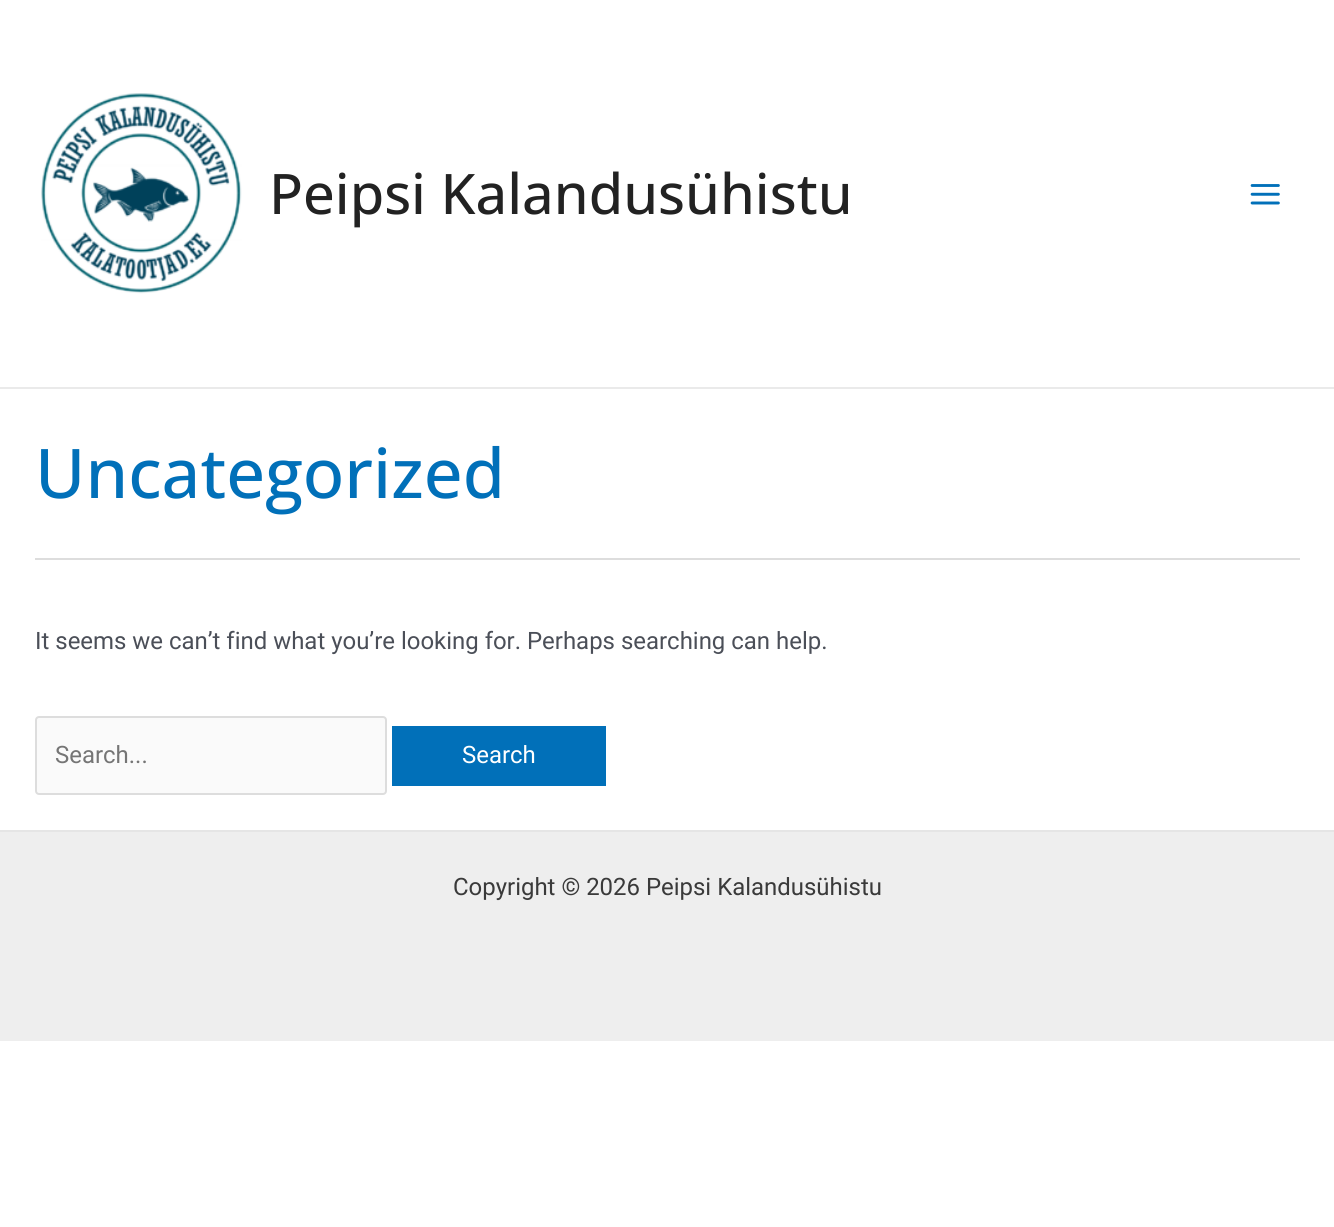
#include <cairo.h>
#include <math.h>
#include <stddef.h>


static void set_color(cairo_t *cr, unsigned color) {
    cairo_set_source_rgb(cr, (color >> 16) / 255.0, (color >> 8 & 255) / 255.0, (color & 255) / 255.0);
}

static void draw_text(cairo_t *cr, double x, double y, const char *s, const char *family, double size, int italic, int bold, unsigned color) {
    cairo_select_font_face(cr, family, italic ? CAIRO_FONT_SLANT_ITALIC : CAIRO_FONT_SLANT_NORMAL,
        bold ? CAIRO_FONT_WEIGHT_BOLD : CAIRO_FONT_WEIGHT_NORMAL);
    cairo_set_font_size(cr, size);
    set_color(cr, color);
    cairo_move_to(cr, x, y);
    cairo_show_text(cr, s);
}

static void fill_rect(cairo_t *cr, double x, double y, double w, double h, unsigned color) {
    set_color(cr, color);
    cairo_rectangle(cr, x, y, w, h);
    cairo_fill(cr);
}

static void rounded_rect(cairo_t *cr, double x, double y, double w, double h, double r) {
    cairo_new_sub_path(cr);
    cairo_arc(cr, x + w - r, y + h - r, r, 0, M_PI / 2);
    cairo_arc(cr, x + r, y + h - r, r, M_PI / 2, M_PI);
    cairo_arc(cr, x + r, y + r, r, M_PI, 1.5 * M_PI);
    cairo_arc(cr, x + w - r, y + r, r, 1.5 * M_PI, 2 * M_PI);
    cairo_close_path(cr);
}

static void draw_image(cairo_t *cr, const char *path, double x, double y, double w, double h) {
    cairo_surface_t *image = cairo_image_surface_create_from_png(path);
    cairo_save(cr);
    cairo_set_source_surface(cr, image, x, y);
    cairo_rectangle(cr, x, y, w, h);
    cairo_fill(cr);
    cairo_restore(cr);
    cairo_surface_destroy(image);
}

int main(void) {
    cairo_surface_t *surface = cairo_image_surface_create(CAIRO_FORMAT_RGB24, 1334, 1227);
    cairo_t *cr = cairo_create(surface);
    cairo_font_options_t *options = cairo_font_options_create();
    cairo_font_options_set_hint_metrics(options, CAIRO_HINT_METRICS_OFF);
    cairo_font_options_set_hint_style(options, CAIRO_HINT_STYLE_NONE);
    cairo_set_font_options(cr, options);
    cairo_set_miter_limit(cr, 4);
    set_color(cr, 0xFFFFFF);
    cairo_paint(cr);
    fill_rect(cr, 0, 387, 1334, 2, 0xEAEAEA);
    draw_image(cr, "assets/img1.png", 41, 93, 201, 201);
    draw_text(cr, 269, 214, "Peipsi Kalandusühistu", "Open Sans Medium", 55.9, 0, 0, 0x222222);
    draw_image(cr, "assets/img2.png", 1250, 184, 30, 21);
    fill_rect(cr, 35, 558, 1265, 2, 0xDDDDDD);
    draw_text(cr, 35, 498, "Uncategorized", "Open Sans Medium", 68.5, 0, 0, 0x0170B9);
    draw_text(cr, 35, 649, "It seems we can’t find what you’re looking for. Perhaps searching can help.", "Roboto", 23.95, 0, 0, 0x4B4F58);
    set_color(cr, 0xFAFAFA);
    rounded_rect(cr, 36, 717, 350, 77, 3);
    cairo_fill_preserve(cr);
    set_color(cr, 0xDDDDDD);
    cairo_stroke(cr);
    draw_text(cr, 55, 763, "Search...", "Roboto", 23.95, 0, 0, 0x757575);
    fill_rect(cr, 392, 726, 214, 60, 0x0170B9);
    draw_text(cr, 462, 763, "Search", "Roboto", 23.95, 0, 0, 0xFFFFFF);
    fill_rect(cr, 0, 832, 1334, 209, 0xEEEEEE);
    fill_rect(cr, 0, 830, 1334, 2, 0xE5E5E5);
    draw_text(cr, 453, 895, "Copyright © 2026 Peipsi Kalandusühistu", "Roboto", 23.95, 0, 0, 0x3A3A3A);
    cairo_surface_write_to_png(surface, "output.png");
    cairo_font_options_destroy(options);
    cairo_destroy(cr);
    cairo_surface_destroy(surface);
    return 0;
}
